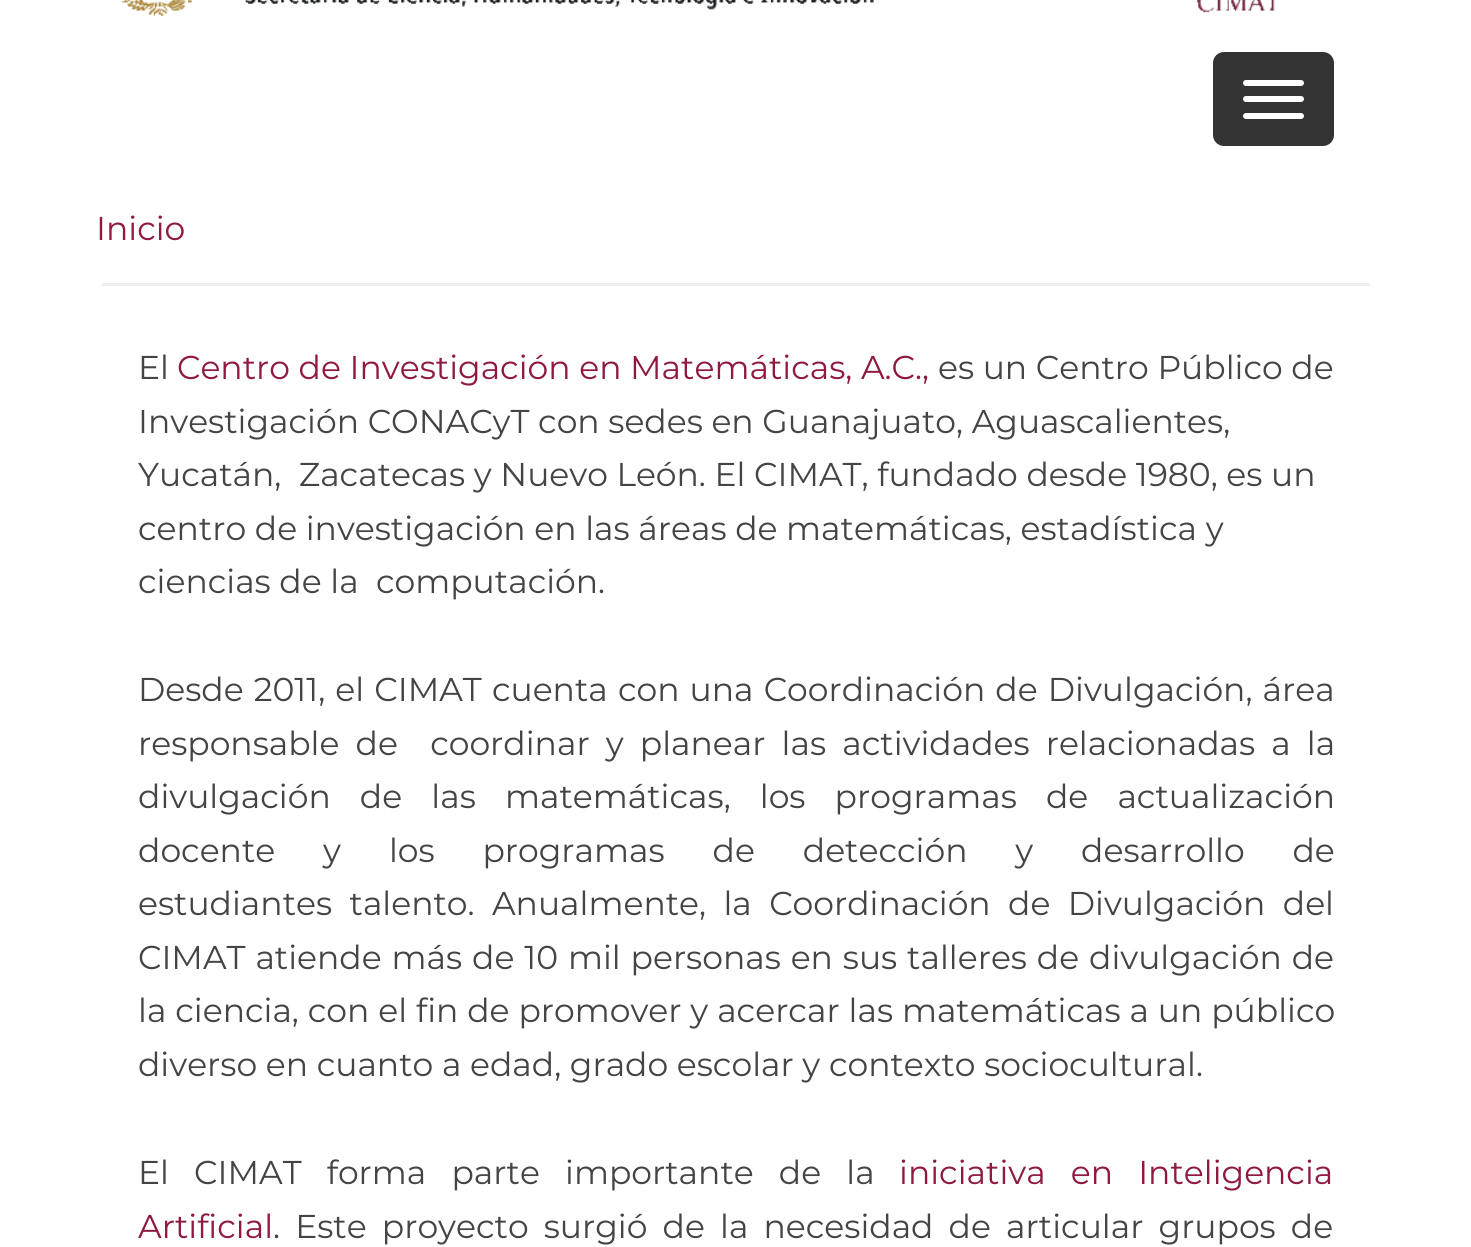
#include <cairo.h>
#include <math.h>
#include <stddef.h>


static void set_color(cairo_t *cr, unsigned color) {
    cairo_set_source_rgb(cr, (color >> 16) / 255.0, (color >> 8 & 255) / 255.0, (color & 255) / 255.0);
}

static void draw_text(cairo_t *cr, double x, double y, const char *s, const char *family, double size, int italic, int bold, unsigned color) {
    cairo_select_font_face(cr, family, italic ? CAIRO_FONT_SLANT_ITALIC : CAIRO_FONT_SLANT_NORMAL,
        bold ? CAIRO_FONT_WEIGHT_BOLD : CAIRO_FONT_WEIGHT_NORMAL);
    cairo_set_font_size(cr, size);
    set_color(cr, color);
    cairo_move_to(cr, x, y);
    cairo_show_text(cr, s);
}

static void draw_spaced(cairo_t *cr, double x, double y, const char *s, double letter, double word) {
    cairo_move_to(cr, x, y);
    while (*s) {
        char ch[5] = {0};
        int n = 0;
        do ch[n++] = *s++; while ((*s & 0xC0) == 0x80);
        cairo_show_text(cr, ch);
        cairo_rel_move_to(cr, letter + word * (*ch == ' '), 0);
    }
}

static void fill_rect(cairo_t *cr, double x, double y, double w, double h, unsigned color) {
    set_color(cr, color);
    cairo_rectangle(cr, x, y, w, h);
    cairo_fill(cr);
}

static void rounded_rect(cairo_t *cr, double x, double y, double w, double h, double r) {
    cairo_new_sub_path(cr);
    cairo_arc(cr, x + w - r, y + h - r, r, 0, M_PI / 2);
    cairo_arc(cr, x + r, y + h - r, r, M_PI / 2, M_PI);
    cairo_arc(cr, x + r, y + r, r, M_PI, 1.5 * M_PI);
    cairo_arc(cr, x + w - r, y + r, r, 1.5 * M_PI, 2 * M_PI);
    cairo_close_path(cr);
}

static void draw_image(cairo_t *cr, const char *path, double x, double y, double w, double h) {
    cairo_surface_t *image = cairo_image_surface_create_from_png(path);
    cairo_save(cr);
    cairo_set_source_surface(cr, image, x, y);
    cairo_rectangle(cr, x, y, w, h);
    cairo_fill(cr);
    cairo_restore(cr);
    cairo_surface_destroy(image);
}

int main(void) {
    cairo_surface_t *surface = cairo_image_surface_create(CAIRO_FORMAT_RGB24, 1471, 1247);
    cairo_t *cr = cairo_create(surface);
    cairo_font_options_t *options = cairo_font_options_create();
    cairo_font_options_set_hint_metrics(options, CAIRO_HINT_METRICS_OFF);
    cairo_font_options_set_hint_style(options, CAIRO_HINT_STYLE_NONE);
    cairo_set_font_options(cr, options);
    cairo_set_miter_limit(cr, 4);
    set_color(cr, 0xFFFFFF);
    cairo_paint(cr);
    draw_image(cr, "assets/img1.png", 121, 0, 1154, 16);
    set_color(cr, 0x333333);
    rounded_rect(cr, 1213, 52, 121, 94, 11);
    cairo_fill(cr);
    set_color(cr, 0xFFFFFF);
    rounded_rect(cr, 1243, 80, 61, 6, 3);
    cairo_fill(cr);
    rounded_rect(cr, 1243, 96, 61, 6, 3);
    cairo_fill(cr);
    rounded_rect(cr, 1243, 113, 61, 6, 3);
    cairo_fill(cr);
    fill_rect(cr, 102, 283, 1268, 3, 0xEEEEEE);
    draw_text(cr, 96, 240, "Inicio", "Montserrat", 33, 0, 0, 0x8F193F);
    draw_text(cr, 138, 379, "El", "Montserrat", 33, 0, 0, 0x444444);
    draw_text(cr, 177, 379, "Centro de Investigación en Matemáticas, A.C.,", "Montserrat", 33, 0, 0, 0x8F193F);
    draw_text(cr, 938, 379, "es un Centro Público de", "Montserrat", 33, 0, 0, 0x444444);
    draw_text(cr, 138, 433, "Investigación CONACyT con sedes en Guanajuato, Aguascalientes,", "Montserrat", 33, 0, 0, 0x444444);
    draw_text(cr, 138, 486, "Yucatán,  Zacatecas y Nuevo León. El CIMAT, fundado desde 1980, es un", "Montserrat", 33, 0, 0, 0x444444);
    draw_text(cr, 138, 540, "centro de investigación en las áreas de matemáticas, estadística y", "Montserrat", 33, 0, 0, 0x444444);
    draw_text(cr, 138, 593, "ciencias de la  computación.", "Montserrat", 33, 0, 0, 0x444444);
    draw_spaced(cr, 138, 701, "Desde 2011, el CIMAT cuenta con una Coordinación de Divulgación, área", 0, 1.5);
    draw_spaced(cr, 138, 755, "responsable de  coordinar y planear las actividades relacionadas a la", 0, 7.5);
    draw_spaced(cr, 138, 808, "divulgación de las matemáticas, los programas de actualización", 0, 20.5);
    draw_spaced(cr, 138, 862, "docente y los programas de detección y desarrollo de", 0, 39.25);
    draw_spaced(cr, 138, 915, "estudiantes talento. Anualmente, la Coordinación de Divulgación del", 0, 8.75);
    draw_spaced(cr, 138, 969, "CIMAT atiende más de 10 mil personas en sus talleres de divulgación de", 0, 1.25);
    draw_spaced(cr, 138, 1022, "la ciencia, con el fin de promover y acercar las matemáticas a un público", 0, 0.25);
    draw_text(cr, 138, 1076, "diverso en cuanto a edad, grado escolar y contexto sociocultural.", "Montserrat", 33, 0, 0, 0x444444);
    draw_spaced(cr, 138, 1184, "El CIMAT forma parte importante de la", 0, 16.5);
    set_color(cr, 0x8F193F);
    draw_spaced(cr, 899, 1184, "iniciativa en Inteligencia", 0, 16.5);
    draw_text(cr, 138, 1238, "Artificial", "Montserrat", 33, 0, 0, 0x8F193F);
    set_color(cr, 0x444444);
    draw_spaced(cr, 273, 1238, ". Este proyecto surgió de la necesidad de articular grupos de", 0, 6.5);
    cairo_surface_write_to_png(surface, "output.png");
    cairo_font_options_destroy(options);
    cairo_destroy(cr);
    cairo_surface_destroy(surface);
    return 0;
}
